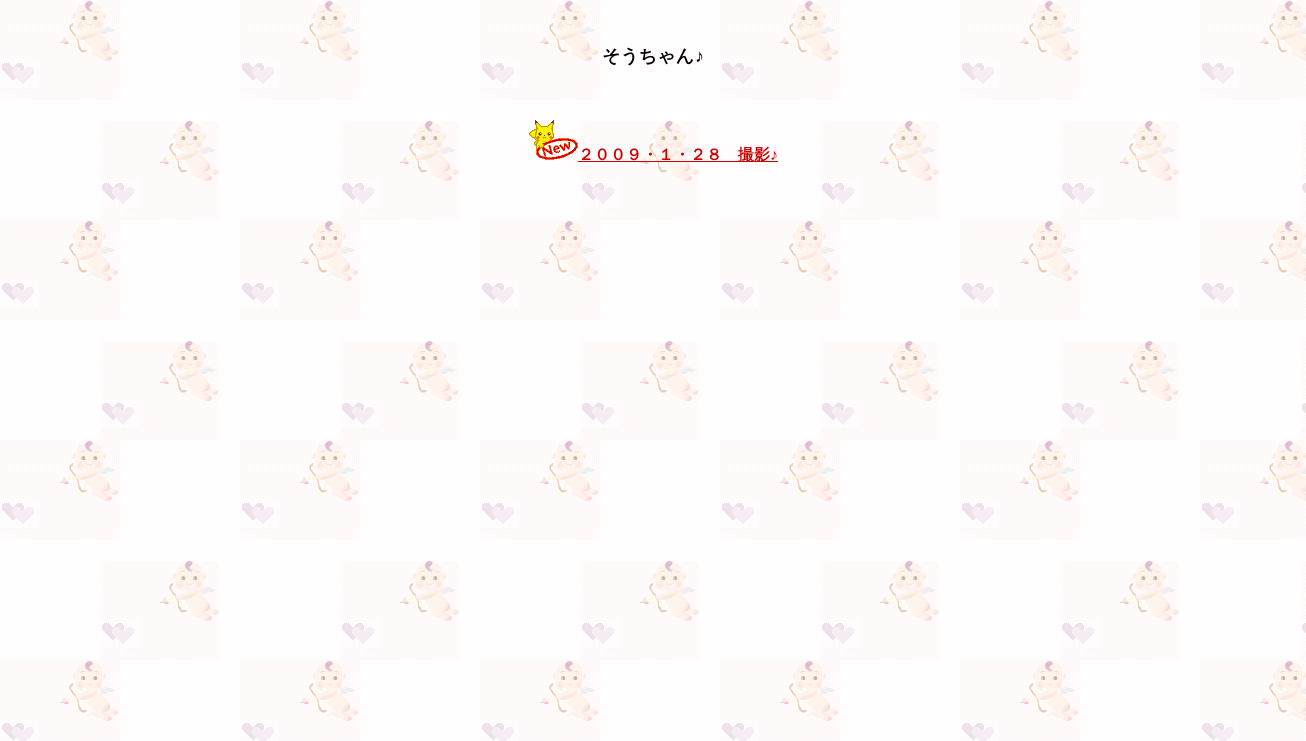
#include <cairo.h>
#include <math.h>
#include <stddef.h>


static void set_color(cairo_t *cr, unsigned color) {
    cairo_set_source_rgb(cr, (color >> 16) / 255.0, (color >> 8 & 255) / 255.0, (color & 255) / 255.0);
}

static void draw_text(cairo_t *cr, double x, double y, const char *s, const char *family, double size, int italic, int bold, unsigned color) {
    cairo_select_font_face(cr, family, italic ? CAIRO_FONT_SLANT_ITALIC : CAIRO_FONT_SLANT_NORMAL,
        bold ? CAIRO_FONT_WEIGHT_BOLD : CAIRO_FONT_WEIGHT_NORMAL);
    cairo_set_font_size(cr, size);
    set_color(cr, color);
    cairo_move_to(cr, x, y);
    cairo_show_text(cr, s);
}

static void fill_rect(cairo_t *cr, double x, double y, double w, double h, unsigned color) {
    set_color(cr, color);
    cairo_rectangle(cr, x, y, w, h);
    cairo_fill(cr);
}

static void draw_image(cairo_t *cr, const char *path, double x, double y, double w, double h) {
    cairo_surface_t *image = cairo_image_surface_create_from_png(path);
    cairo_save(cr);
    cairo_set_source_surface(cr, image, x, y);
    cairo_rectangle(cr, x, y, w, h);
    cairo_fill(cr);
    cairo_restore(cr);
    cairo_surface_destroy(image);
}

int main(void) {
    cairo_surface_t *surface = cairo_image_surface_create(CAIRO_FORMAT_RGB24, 1306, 741);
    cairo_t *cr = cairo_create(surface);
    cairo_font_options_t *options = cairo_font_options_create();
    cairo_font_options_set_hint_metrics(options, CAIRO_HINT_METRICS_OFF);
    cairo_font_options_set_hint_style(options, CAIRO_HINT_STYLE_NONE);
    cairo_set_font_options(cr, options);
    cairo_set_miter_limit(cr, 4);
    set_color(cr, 0xFFFFFF);
    cairo_paint(cr);
    draw_image(cr, "assets/img1.png", 0, 0, 1306, 741);
    draw_text(cr, 602, 62, "そうちゃん", "WenQuanYi Zen Hei", 18, 0, 1, 0x000000);
    draw_text(cr, 695, 62, "♪", "Liberation Serif", 18, 0, 1, 0x000000);
    draw_image(cr, "assets/img2.png", 529, 120, 49, 40);
    fill_rect(cr, 578, 161, 200, 1, 0xCC0000);
    draw_text(cr, 578, 160, "２００９・１・２８　撮影", "WenQuanYi Zen Hei", 16, 0, 1, 0xCC0000);
    draw_text(cr, 770, 160, "♪", "Liberation Serif", 16, 0, 1, 0xCC0000);
    cairo_surface_write_to_png(surface, "output.png");
    cairo_font_options_destroy(options);
    cairo_destroy(cr);
    cairo_surface_destroy(surface);
    return 0;
}
